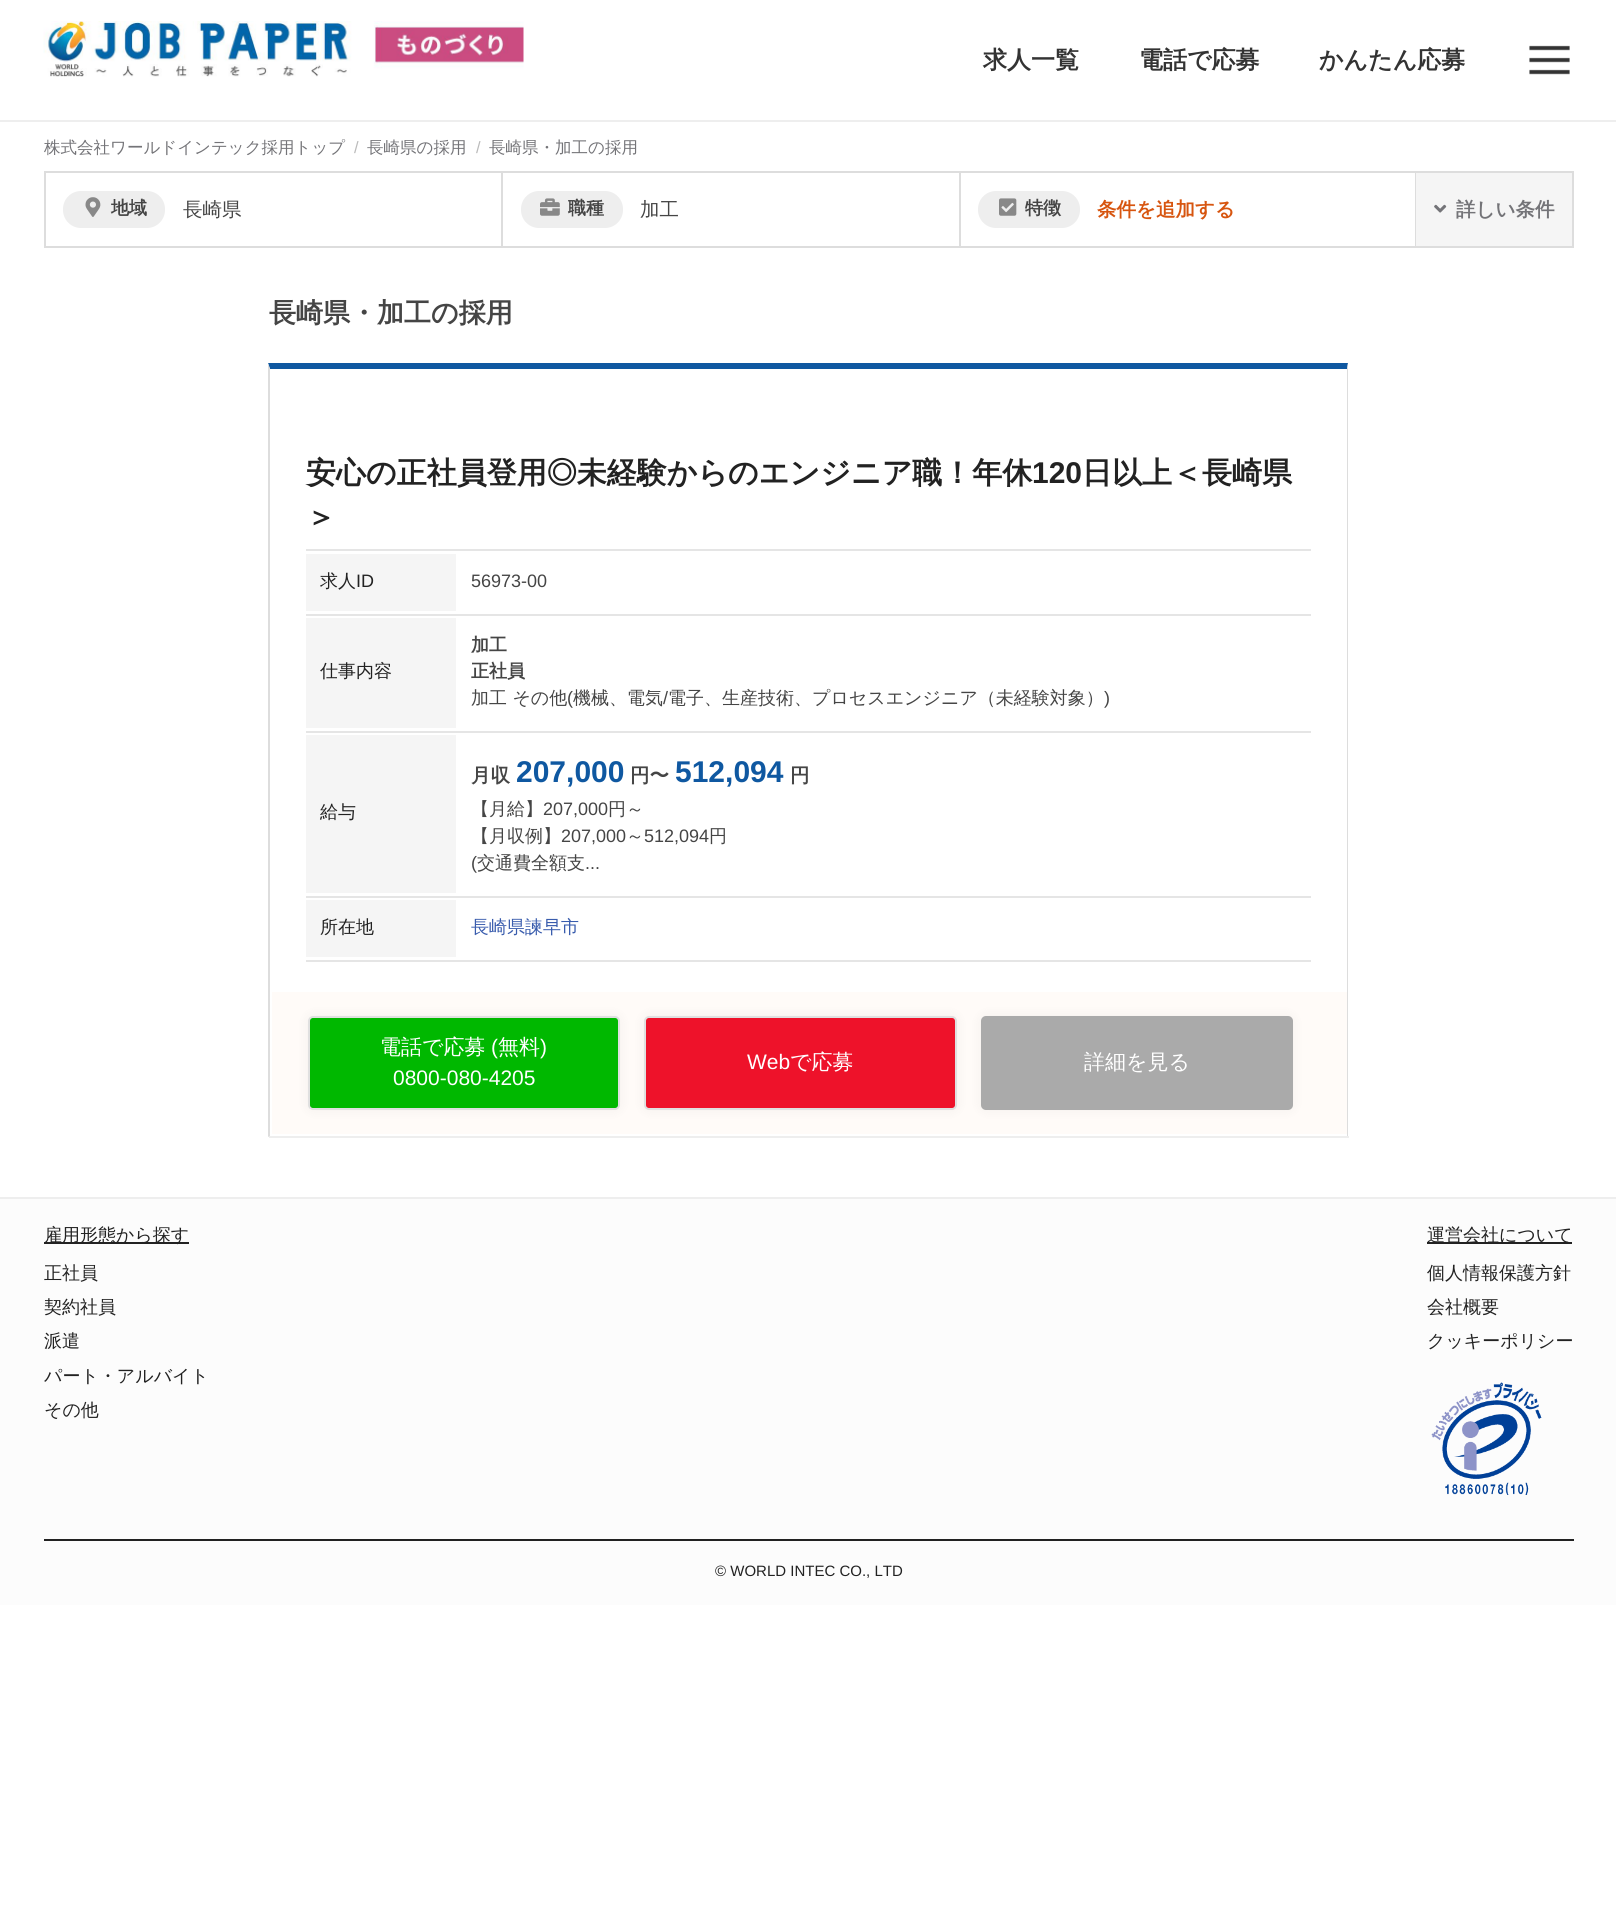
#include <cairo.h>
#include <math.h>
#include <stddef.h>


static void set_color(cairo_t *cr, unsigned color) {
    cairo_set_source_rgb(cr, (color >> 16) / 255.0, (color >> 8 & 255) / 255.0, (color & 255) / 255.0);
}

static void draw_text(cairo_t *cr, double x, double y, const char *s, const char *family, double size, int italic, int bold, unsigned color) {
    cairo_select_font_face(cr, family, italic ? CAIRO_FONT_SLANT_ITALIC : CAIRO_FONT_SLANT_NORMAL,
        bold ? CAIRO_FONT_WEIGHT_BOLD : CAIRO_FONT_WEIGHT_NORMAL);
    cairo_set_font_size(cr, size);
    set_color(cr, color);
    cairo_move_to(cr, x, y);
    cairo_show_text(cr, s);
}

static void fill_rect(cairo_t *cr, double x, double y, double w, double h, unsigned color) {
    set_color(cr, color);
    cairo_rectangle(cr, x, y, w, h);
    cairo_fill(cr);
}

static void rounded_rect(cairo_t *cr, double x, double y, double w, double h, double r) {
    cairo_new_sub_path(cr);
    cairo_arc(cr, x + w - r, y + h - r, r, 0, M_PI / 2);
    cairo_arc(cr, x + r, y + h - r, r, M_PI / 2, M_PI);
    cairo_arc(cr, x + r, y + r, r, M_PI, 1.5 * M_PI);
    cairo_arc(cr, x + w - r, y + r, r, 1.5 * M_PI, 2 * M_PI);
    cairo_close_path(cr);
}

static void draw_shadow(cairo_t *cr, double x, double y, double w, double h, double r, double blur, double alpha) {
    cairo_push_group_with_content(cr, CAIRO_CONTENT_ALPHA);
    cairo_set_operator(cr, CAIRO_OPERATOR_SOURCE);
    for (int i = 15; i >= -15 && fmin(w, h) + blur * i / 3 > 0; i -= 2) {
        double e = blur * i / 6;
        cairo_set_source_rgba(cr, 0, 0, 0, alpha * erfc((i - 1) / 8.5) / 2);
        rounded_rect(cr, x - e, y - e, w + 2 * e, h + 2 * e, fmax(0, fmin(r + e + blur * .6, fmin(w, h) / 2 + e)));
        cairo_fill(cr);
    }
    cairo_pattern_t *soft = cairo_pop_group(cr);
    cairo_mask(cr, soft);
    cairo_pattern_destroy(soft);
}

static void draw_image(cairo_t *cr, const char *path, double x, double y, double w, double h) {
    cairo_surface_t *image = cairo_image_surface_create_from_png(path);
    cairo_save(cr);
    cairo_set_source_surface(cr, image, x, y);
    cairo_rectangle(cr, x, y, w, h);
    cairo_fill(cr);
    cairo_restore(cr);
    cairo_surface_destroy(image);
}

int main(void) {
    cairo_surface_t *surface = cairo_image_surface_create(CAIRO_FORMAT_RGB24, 1616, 1924);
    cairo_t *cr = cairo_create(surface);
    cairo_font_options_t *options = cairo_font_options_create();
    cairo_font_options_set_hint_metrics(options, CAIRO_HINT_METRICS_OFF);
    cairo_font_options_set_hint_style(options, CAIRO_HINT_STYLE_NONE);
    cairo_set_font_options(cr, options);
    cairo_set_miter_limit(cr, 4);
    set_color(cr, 0xFFFFFF);
    cairo_paint(cr);
    fill_rect(cr, 0, 120, 1616, 2, 0xEEEEEE);
    draw_image(cr, "assets/img1.png", 43, 21, 481, 56);
    draw_text(cr, 983, 68, "求人一覧", "WenQuanYi Zen Hei", 24, 0, 1, 0x333333);
    draw_text(cr, 1139, 68, "電話で応募", "WenQuanYi Zen Hei", 24, 0, 1, 0x333333);
    draw_text(cr, 1319, 68, "かんたん応募", "WenQuanYi Zen Hei", 24, 0, 1, 0x333333);
    draw_image(cr, "assets/img2.png", 1529, 45, 41, 30);
    draw_text(cr, 44, 153, "株式会社ワールドインテック採用トップ", "WenQuanYi Zen Hei Medium", 16.5, 0, 0, 0x747478);
    draw_text(cr, 354, 153, "/", "Liberation Sans", 16.5, 0, 0, 0xBBBBBB);
    draw_text(cr, 367, 153, "長崎県の採用", "WenQuanYi Zen Hei Medium", 16.5, 0, 0, 0x747478);
    draw_text(cr, 476, 153, "/", "Liberation Sans", 16.5, 0, 0, 0xBBBBBB);
    draw_text(cr, 489, 153, "長崎県・加工の採用", "WenQuanYi Zen Hei Medium", 16.5, 0, 0, 0x747478);
    cairo_rectangle(cr, 45, 172, 1528, 75);
    set_color(cr, 0xDDDDDD);
    cairo_stroke(cr);
    fill_rect(cr, 501, 173, 2, 73, 0xDDDDDD);
    set_color(cr, 0xEEEEEE);
    rounded_rect(cr, 63, 191, 102, 37, 18);
    cairo_fill(cr);
    draw_image(cr, "assets/img3.png", 85, 197, 16, 20);
    draw_text(cr, 111, 214, "地域", "WenQuanYi Zen Hei", 18, 0, 1, 0x454545);
    draw_text(cr, 183, 216, "長崎県", "WenQuanYi Zen Hei Medium", 19.5, 0, 0, 0x454545);
    fill_rect(cr, 959, 173, 2, 73, 0xDDDDDD);
    set_color(cr, 0xEEEEEE);
    rounded_rect(cr, 521, 191, 102, 37, 18);
    cairo_fill(cr);
    draw_image(cr, "assets/img4.png", 540, 198, 20, 18);
    draw_text(cr, 568, 214, "職種", "WenQuanYi Zen Hei", 18, 0, 1, 0x454545);
    draw_text(cr, 640, 216, "加工", "WenQuanYi Zen Hei Medium", 19.5, 0, 0, 0x454545);
    fill_rect(cr, 1415, 173, 1, 73, 0xDDDDDD);
    set_color(cr, 0xEEEEEE);
    rounded_rect(cr, 978, 191, 102, 37, 18);
    cairo_fill(cr);
    draw_image(cr, "assets/img5.png", 999, 198, 18, 18);
    draw_text(cr, 1025, 214, "特徴", "WenQuanYi Zen Hei", 18, 0, 1, 0x454545);
    draw_text(cr, 1097, 216, "条件を追加する", "WenQuanYi Zen Hei", 19.5, 0, 1, 0xD7550F);
    fill_rect(cr, 1416, 173, 156, 73, 0xF5F5F5);
    draw_image(cr, "assets/img6.png", 1434, 204, 13, 9);
    draw_text(cr, 1456, 216, "詳しい条件", "WenQuanYi Zen Hei", 19.5, 0, 1, 0x747478);
    draw_text(cr, 269, 322, "長崎県・加工の採用", "WenQuanYi Zen Hei", 27, 0, 1, 0x454545);
    set_color(cr, 0x0F58A1);
    cairo_new_path(cr);
    cairo_move_to(cr, 268, 363);
    cairo_line_to(cr, 1348, 363);
    cairo_line_to(cr, 1347, 369);
    cairo_line_to(cr, 270, 369);
    cairo_close_path(cr);
    cairo_fill(cr);
    set_color(cr, 0xDDDDDD);
    cairo_new_path(cr);
    cairo_move_to(cr, 1348, 363);
    cairo_line_to(cr, 1348, 1137);
    cairo_line_to(cr, 1347, 1136);
    cairo_line_to(cr, 1347, 369);
    cairo_close_path(cr);
    cairo_fill(cr);
    fill_rect(cr, 269, 1136, 1080, 2, 0xEEEEEE);
    set_color(cr, 0xDDDDDD);
    cairo_new_path(cr);
    cairo_move_to(cr, 268, 1137);
    cairo_line_to(cr, 268, 363);
    cairo_line_to(cr, 270, 369);
    cairo_line_to(cr, 270, 1136);
    cairo_close_path(cr);
    cairo_fill(cr);
    draw_text(cr, 306, 483, "安心の正社員登用◎未経験からのエンジニア職！年休", "WenQuanYi Zen Hei", 30, 0, 1, 0x222222);
    draw_text(cr, 1032, 483, "120", "Liberation Sans", 30, 0, 1, 0x222222);
    draw_text(cr, 1082, 483, "日以上＜長崎県", "WenQuanYi Zen Hei", 30, 0, 1, 0x222222);
    draw_text(cr, 306, 527, "＞", "WenQuanYi Zen Hei", 30, 0, 1, 0x222222);
    fill_rect(cr, 306, 960, 1005, 2, 0xE5E5E5);
    fill_rect(cr, 306, 549, 1005, 2, 0xE5E5E5);
    fill_rect(cr, 306, 554, 150, 57, 0xF5F5F5);
    draw_text(cr, 320, 587, "求人", "WenQuanYi Zen Hei Medium", 18, 0, 0, 0x222222);
    draw_text(cr, 356, 587, "ID", "Liberation Sans", 18, 0, 0, 0x222222);
    draw_text(cr, 471, 587, "56973-00", "Liberation Sans", 18, 0, 0, 0x454545);
    fill_rect(cr, 306, 614, 1005, 2, 0xE5E5E5);
    fill_rect(cr, 306, 618, 150, 110, 0xF5F5F5);
    draw_text(cr, 320, 677, "仕事内容", "WenQuanYi Zen Hei Medium", 18, 0, 0, 0x222222);
    draw_text(cr, 471, 651, "加工", "WenQuanYi Zen Hei", 18, 0, 1, 0x454545);
    draw_text(cr, 471, 677, "正社員", "WenQuanYi Zen Hei", 18, 0, 1, 0x454545);
    draw_text(cr, 471, 704, "加工 その他", "WenQuanYi Zen Hei Medium", 18, 0, 0, 0x454545);
    draw_text(cr, 567, 704, "(", "Liberation Sans", 18, 0, 0, 0x454545);
    draw_text(cr, 573, 704, "機械、電気", "WenQuanYi Zen Hei Medium", 18, 0, 0, 0x454545);
    draw_text(cr, 663, 704, "/", "Liberation Sans", 18, 0, 0, 0x454545);
    draw_text(cr, 668, 704, "電子、生産技術、プロセスエンジニア（未経験対象）", "WenQuanYi Zen Hei Medium", 18, 0, 0, 0x454545);
    draw_text(cr, 1104, 704, ")", "Liberation Sans", 18, 0, 0, 0x454545);
    fill_rect(cr, 306, 731, 1005, 2, 0xE5E5E5);
    fill_rect(cr, 306, 735, 150, 158, 0xF5F5F5);
    draw_text(cr, 320, 818, "給与", "WenQuanYi Zen Hei Medium", 18, 0, 0, 0x222222);
    draw_text(cr, 471, 782, "月収", "WenQuanYi Zen Hei", 19.5, 0, 1, 0x454545);
    draw_text(cr, 516, 782, "207,000", "Liberation Sans", 30, 0, 1, 0x0F58A1);
    draw_text(cr, 630, 782, "円〜", "WenQuanYi Zen Hei", 19.5, 0, 1, 0x454545);
    draw_text(cr, 675, 782, "512,094", "Liberation Sans", 30, 0, 1, 0x0F58A1);
    draw_text(cr, 790, 782, "円", "WenQuanYi Zen Hei", 19.5, 0, 1, 0x454545);
    draw_text(cr, 471, 815, "【月給】", "WenQuanYi Zen Hei Medium", 18, 0, 0, 0x454545);
    draw_text(cr, 543, 815, "207,000", "Liberation Sans", 18, 0, 0, 0x454545);
    draw_text(cr, 608, 815, "円～", "WenQuanYi Zen Hei Medium", 18, 0, 0, 0x454545);
    draw_text(cr, 471, 842, "【月収例】", "WenQuanYi Zen Hei Medium", 18, 0, 0, 0x454545);
    draw_text(cr, 561, 842, "207,000", "Liberation Sans", 18, 0, 0, 0x454545);
    draw_text(cr, 626, 842, "～", "WenQuanYi Zen Hei Medium", 18, 0, 0, 0x454545);
    draw_text(cr, 644, 842, "512,094", "Liberation Sans", 18, 0, 0, 0x454545);
    draw_text(cr, 709, 842, "円", "WenQuanYi Zen Hei Medium", 18, 0, 0, 0x454545);
    draw_text(cr, 471, 869, "(", "Liberation Sans", 18, 0, 0, 0x454545);
    draw_text(cr, 477, 869, "交通費全額支", "WenQuanYi Zen Hei Medium", 18, 0, 0, 0x454545);
    draw_text(cr, 585, 869, "...", "Liberation Sans", 18, 0, 0, 0x454545);
    fill_rect(cr, 306, 896, 1005, 2, 0xE5E5E5);
    fill_rect(cr, 306, 900, 150, 57, 0xF5F5F5);
    draw_text(cr, 320, 933, "所在地", "WenQuanYi Zen Hei Medium", 18, 0, 0, 0x222222);
    draw_text(cr, 471, 933, "長崎県諫早市", "WenQuanYi Zen Hei Medium", 18, 0, 0, 0x395CAD);
    fill_rect(cr, 272, 992, 1075, 142, 0xFFFBF8);
    set_color(cr, 0x000000);
    draw_shadow(cr, 308, 1016, 312, 94, 5, 6, 0.05);
    set_color(cr, 0x00B800);
    rounded_rect(cr, 309, 1017, 310, 92, 4);
    cairo_fill_preserve(cr);
    set_color(cr, 0xE0E0E0);
    cairo_stroke(cr);
    draw_text(cr, 380, 1054, "電話で応募", "WenQuanYi Zen Hei Medium", 21, 0, 0, 0xFFFFFF);
    draw_text(cr, 491, 1054, "(", "Liberation Sans", 21, 0, 0, 0xFFFFFF);
    draw_text(cr, 498, 1054, "無料", "WenQuanYi Zen Hei Medium", 21, 0, 0, 0xFFFFFF);
    draw_text(cr, 540, 1054, ")", "Liberation Sans", 21, 0, 0, 0xFFFFFF);
    draw_text(cr, 393, 1085, "0800-080-4205", "Liberation Sans", 21, 0, 0, 0xFFFFFF);
    set_color(cr, 0x000000);
    draw_shadow(cr, 644, 1016, 313, 94, 5, 6, 0.05);
    set_color(cr, 0xEE122A);
    rounded_rect(cr, 645, 1017, 311, 92, 4);
    cairo_fill_preserve(cr);
    set_color(cr, 0xE0E0E0);
    cairo_stroke(cr);
    draw_text(cr, 747, 1069, "Web", "Liberation Sans", 21, 0, 0, 0xFFFFFF);
    draw_text(cr, 790, 1069, "で応募", "WenQuanYi Zen Hei Medium", 21, 0, 0, 0xFFFFFF);
    set_color(cr, 0x000000);
    draw_shadow(cr, 981, 1016, 312, 94, 5, 6, 0.05);
    set_color(cr, 0xAAAAAA);
    rounded_rect(cr, 981, 1016, 312, 94, 5);
    cairo_fill(cr);
    draw_text(cr, 1084, 1069, "詳細を見る", "WenQuanYi Zen Hei Medium", 21, 0, 0, 0xFFFFFF);
    fill_rect(cr, 0, 1199, 1616, 406, 0xFCFCFC);
    fill_rect(cr, 0, 1197, 1616, 2, 0xEEEEEE);
    fill_rect(cr, 44, 1539, 1530, 2, 0x222222);
    fill_rect(cr, 44, 1242, 145, 2, 0x222222);
    draw_text(cr, 44, 1241, "雇用形態から探す", "WenQuanYi Zen Hei Medium", 18, 0, 0, 0x222222);
    draw_text(cr, 44, 1279, "正社員", "WenQuanYi Zen Hei Medium", 18, 0, 0, 0x222222);
    draw_text(cr, 44, 1313, "契約社員", "WenQuanYi Zen Hei Medium", 18, 0, 0, 0x222222);
    draw_text(cr, 44, 1347, "派遣", "WenQuanYi Zen Hei Medium", 18, 0, 0, 0x222222);
    draw_text(cr, 44, 1382, "パート・アルバイト", "WenQuanYi Zen Hei Medium", 18, 0, 0, 0x222222);
    draw_text(cr, 44, 1416, "その他", "WenQuanYi Zen Hei Medium", 18, 0, 0, 0x222222);
    fill_rect(cr, 1427, 1242, 145, 2, 0x222222);
    draw_text(cr, 1427, 1241, "運営会社について", "WenQuanYi Zen Hei Medium", 18, 0, 0, 0x222222);
    draw_text(cr, 1427, 1279, "個人情報保護方針", "WenQuanYi Zen Hei Medium", 18, 0, 0, 0x222222);
    draw_text(cr, 1427, 1313, "会社概要", "WenQuanYi Zen Hei Medium", 18, 0, 0, 0x222222);
    draw_text(cr, 1427, 1347, "クッキーポリシー", "WenQuanYi Zen Hei Medium", 18, 0, 0, 0x222222);
    draw_image(cr, "assets/img7.png", 1431, 1382, 111, 113);
    draw_text(cr, 715, 1576, "© WORLD INTEC CO., LTD", "Liberation Sans", 15, 0, 0, 0x222222);
    cairo_surface_write_to_png(surface, "output.png");
    cairo_font_options_destroy(options);
    cairo_destroy(cr);
    cairo_surface_destroy(surface);
    return 0;
}
